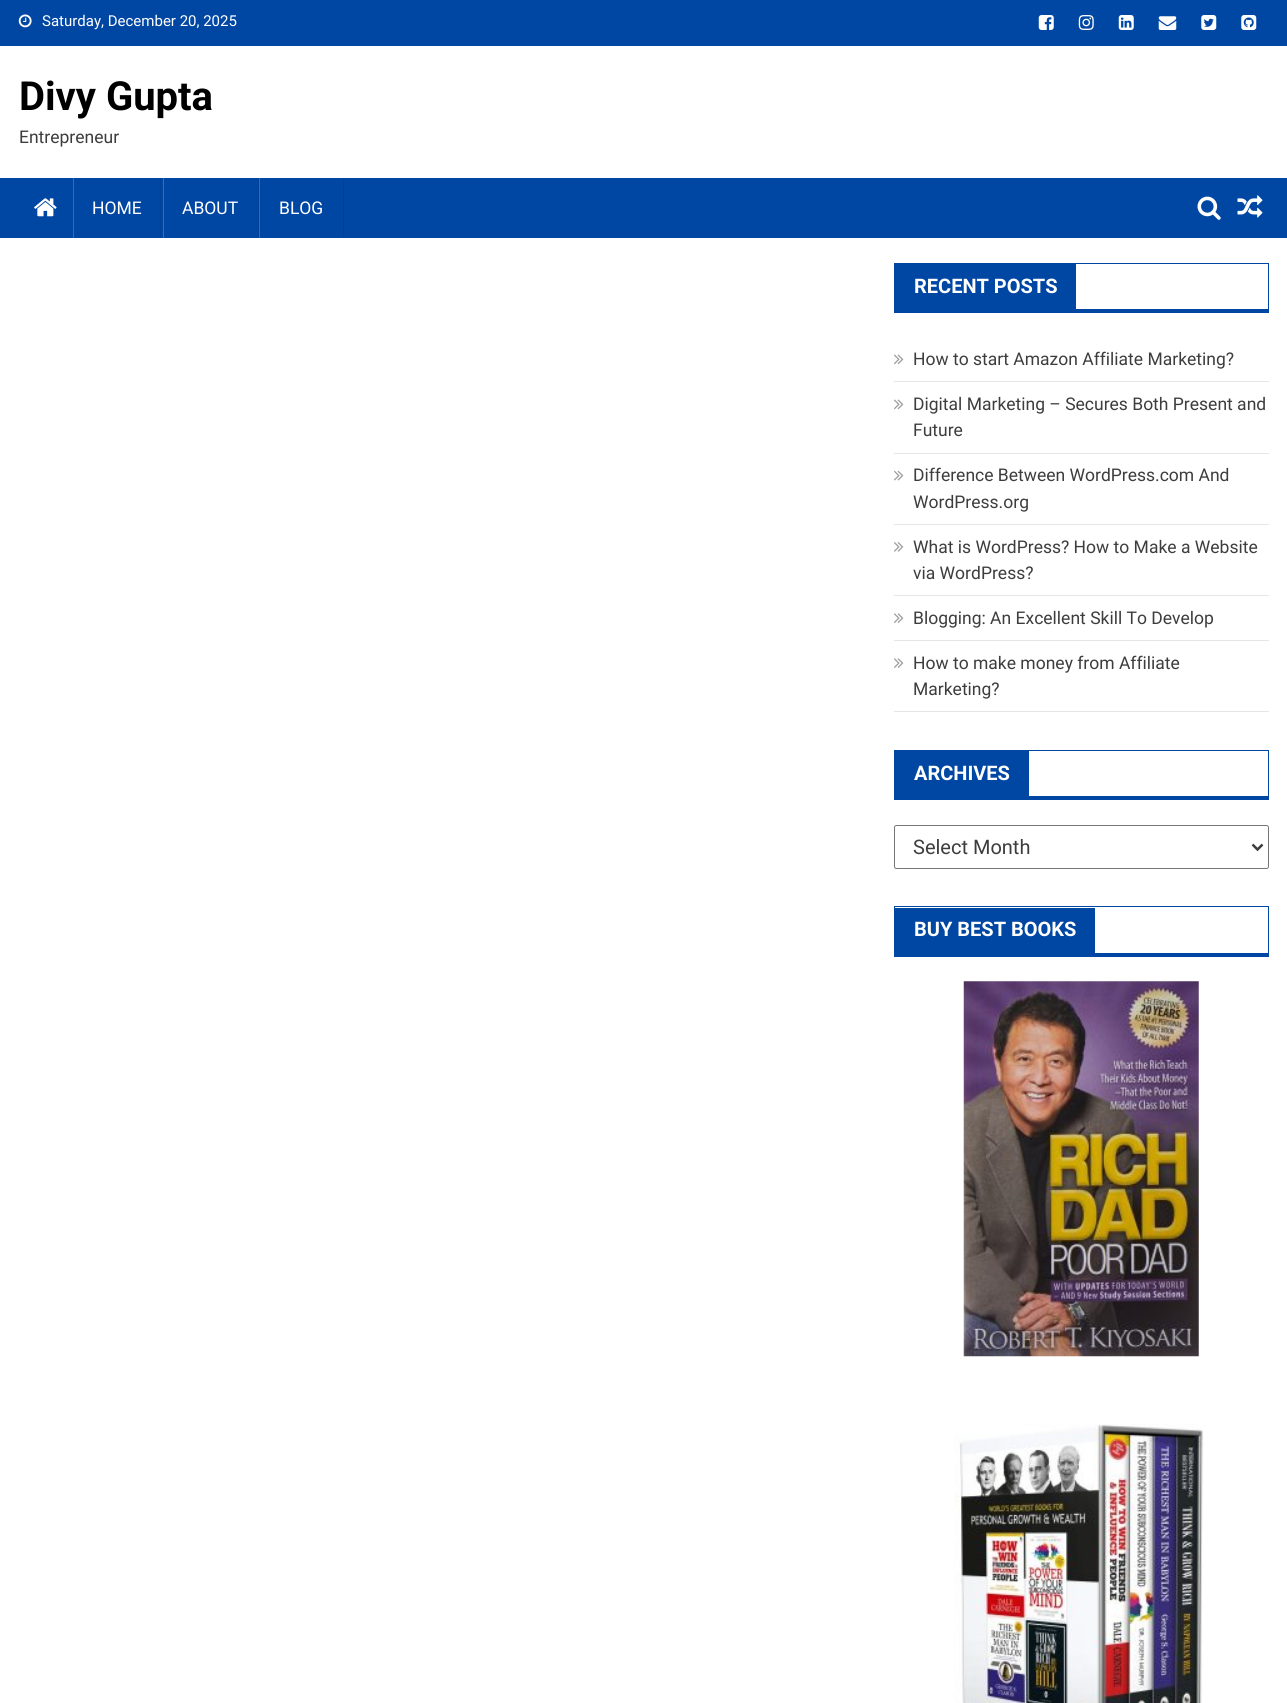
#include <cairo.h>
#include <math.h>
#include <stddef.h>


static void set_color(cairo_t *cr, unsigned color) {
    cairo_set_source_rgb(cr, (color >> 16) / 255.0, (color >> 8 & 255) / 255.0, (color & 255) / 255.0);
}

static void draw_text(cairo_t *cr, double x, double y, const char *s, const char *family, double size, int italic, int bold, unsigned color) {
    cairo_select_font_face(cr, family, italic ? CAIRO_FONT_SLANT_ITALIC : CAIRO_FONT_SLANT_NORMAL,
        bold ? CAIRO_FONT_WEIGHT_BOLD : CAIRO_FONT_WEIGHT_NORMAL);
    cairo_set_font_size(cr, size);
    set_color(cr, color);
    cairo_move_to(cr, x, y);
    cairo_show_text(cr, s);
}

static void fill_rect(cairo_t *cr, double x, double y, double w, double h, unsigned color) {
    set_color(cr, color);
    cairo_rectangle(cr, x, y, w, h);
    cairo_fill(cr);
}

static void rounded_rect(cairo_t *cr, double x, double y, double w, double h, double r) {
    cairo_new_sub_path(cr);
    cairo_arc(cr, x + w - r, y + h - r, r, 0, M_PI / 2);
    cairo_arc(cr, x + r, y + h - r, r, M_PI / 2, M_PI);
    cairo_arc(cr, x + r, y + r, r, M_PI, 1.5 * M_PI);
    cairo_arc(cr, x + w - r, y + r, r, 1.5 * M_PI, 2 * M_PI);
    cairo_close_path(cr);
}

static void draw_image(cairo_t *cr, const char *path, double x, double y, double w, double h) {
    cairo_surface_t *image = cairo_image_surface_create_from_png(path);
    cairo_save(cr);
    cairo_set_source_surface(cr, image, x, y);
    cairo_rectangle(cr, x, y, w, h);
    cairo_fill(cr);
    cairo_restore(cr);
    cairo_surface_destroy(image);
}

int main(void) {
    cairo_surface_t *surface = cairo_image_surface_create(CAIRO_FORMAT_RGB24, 1287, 1703);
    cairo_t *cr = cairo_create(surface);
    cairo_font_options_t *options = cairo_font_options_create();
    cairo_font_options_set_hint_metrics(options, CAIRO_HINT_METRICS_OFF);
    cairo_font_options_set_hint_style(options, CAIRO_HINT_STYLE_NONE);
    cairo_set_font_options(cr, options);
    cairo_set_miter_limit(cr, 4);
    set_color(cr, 0xFFFFFF);
    cairo_paint(cr);
    fill_rect(cr, 0, 0, 1287, 46, 0x0046A3);
    draw_image(cr, "assets/img1.png", 18, 14, 14, 14);
    draw_text(cr, 42, 26, "Saturday, December 20, 2025", "Roboto", 15, 0, 0, 0xFFFFFF);
    draw_image(cr, "assets/img2.png", 1038, 15, 16, 15);
    draw_image(cr, "assets/img3.png", 1078, 15, 16, 15);
    draw_image(cr, "assets/img4.png", 1118, 15, 16, 15);
    draw_image(cr, "assets/img5.png", 1158, 16, 19, 14);
    draw_image(cr, "assets/img6.png", 1201, 15, 16, 15);
    draw_image(cr, "assets/img7.png", 1241, 15, 16, 15);
    draw_text(cr, 19, 110, "Divy Gupta", "Roboto", 40, 0, 1, 0x000000);
    draw_text(cr, 19, 143, "Entrepreneur", "Roboto", 17.5, 0, 0, 0x3D3D3D);
    fill_rect(cr, 0, 178, 1287, 60, 0x0046A3);
    draw_image(cr, "assets/img8.png", 34, 198, 23, 19);
    fill_rect(cr, 160, 178, 1, 60, 0x004096);
    fill_rect(cr, 73, 178, 1, 60, 0x336BB5);
    draw_text(cr, 92, 214, "HOME", "Roboto", 17.5, 0, 0, 0xFFFFFF);
    fill_rect(cr, 258, 178, 1, 60, 0x004096);
    fill_rect(cr, 163, 178, 1, 60, 0x336BB5);
    draw_text(cr, 182, 214, "ABOUT", "Roboto", 17.5, 0, 0, 0xFFFFFF);
    fill_rect(cr, 343, 178, 1, 60, 0x004096);
    fill_rect(cr, 259, 178, 1, 60, 0x336BB5);
    draw_text(cr, 279, 214, "BLOG", "Roboto", 17.5, 0, 0, 0xFFFFFF);
    draw_image(cr, "assets/img9.png", 1197, 196, 24, 24);
    draw_image(cr, "assets/img10.png", 1237, 195, 26, 23);
    fill_rect(cr, 894, 263, 375, 1, 0x0046A3);
    fill_rect(cr, 1268, 263, 1, 50, 0x0046A3);
    fill_rect(cr, 894, 309, 375, 4, 0x0046A3);
    fill_rect(cr, 894, 263, 1, 50, 0x0046A3);
    fill_rect(cr, 895, 264, 181, 45, 0x0046A3);
    draw_text(cr, 914, 293, "RECENT POSTS", "Roboto", 20, 0, 1, 0xFFFFFF);
    fill_rect(cr, 894, 381, 375, 1, 0xE6E6E6);
    draw_image(cr, "assets/img11.png", 894, 354, 10, 11);
    draw_text(cr, 913, 365, "How to start Amazon Affiliate Marketing?", "Roboto", 17.5, 0, 0, 0x3D3D3D);
    fill_rect(cr, 894, 453, 375, 1, 0xE6E6E6);
    draw_image(cr, "assets/img11.png", 894, 399, 10, 11);
    draw_text(cr, 913, 410, "Digital Marketing – Secures Both Present and", "Roboto", 17.5, 0, 0, 0x3D3D3D);
    draw_text(cr, 913, 436, "Future", "Roboto", 17.5, 0, 0, 0x3D3D3D);
    fill_rect(cr, 894, 524, 375, 1, 0xE6E6E6);
    draw_image(cr, "assets/img12.png", 894, 470, 10, 11);
    draw_text(cr, 913, 481, "Difference Between WordPress.com And", "Roboto", 17.5, 0, 0, 0x3D3D3D);
    draw_text(cr, 913, 508, "WordPress.org", "Roboto", 17.5, 0, 0, 0x3D3D3D);
    fill_rect(cr, 894, 595, 375, 1, 0xE6E6E6);
    draw_image(cr, "assets/img13.png", 894, 542, 10, 10);
    draw_text(cr, 913, 553, "What is WordPress? How to Make a Website", "Roboto", 17.5, 0, 0, 0x3D3D3D);
    draw_text(cr, 913, 579, "via WordPress?", "Roboto", 17.5, 0, 0, 0x3D3D3D);
    fill_rect(cr, 894, 640, 375, 1, 0xE6E6E6);
    draw_image(cr, "assets/img14.png", 894, 613, 10, 10);
    draw_text(cr, 913, 624, "Blogging: An Excellent Skill To Develop", "Roboto", 17.5, 0, 0, 0x3D3D3D);
    fill_rect(cr, 894, 711, 375, 1, 0xE6E6E6);
    draw_image(cr, "assets/img14.png", 894, 658, 10, 10);
    draw_text(cr, 913, 669, "How to make money from Affiliate", "Roboto", 17.5, 0, 0, 0x3D3D3D);
    draw_text(cr, 913, 695, "Marketing?", "Roboto", 17.5, 0, 0, 0x3D3D3D);
    fill_rect(cr, 894, 750, 375, 1, 0x0046A3);
    fill_rect(cr, 1268, 750, 1, 50, 0x0046A3);
    fill_rect(cr, 894, 796, 375, 4, 0x0046A3);
    fill_rect(cr, 894, 750, 1, 50, 0x0046A3);
    fill_rect(cr, 895, 751, 134, 45, 0x0046A3);
    draw_text(cr, 914, 780, "ARCHIVES", "Roboto", 20, 0, 1, 0xFFFFFF);
    rounded_rect(cr, 894.5, 825.5, 374, 43, 2);
    set_color(cr, 0x767676);
    cairo_set_line_width(cr, 1);
    cairo_stroke(cr);
    cairo_new_path(cr);
    cairo_move_to(cr, 1252.5, 844.5);
    cairo_line_to(cr, 1257.5, 849.5);
    cairo_line_to(cr, 1262.5, 844.5);
    set_color(cr, 0x3D3D3D);
    cairo_set_line_width(cr, 2.5);
    cairo_stroke(cr);
    draw_text(cr, 913, 854, "Select Month", "Roboto", 20, 0, 0, 0x3D3D3D);
    fill_rect(cr, 894, 906, 375, 1, 0x0046A3);
    fill_rect(cr, 1268, 906, 1, 50, 0x0046A3);
    fill_rect(cr, 894, 953, 375, 4, 0x0046A3);
    fill_rect(cr, 894, 906, 1, 50, 0x0046A3);
    fill_rect(cr, 895, 908, 200, 45, 0x0046A3);
    draw_text(cr, 914, 936, "BUY BEST BOOKS", "Roboto", 20, 0, 1, 0xFFFFFF);
    draw_image(cr, "assets/img15.png", 963, 981, 236, 376);
    draw_image(cr, "assets/img16.png", 954, 1424, 250, 279);
    cairo_surface_write_to_png(surface, "output.png");
    cairo_font_options_destroy(options);
    cairo_destroy(cr);
    cairo_surface_destroy(surface);
    return 0;
}
